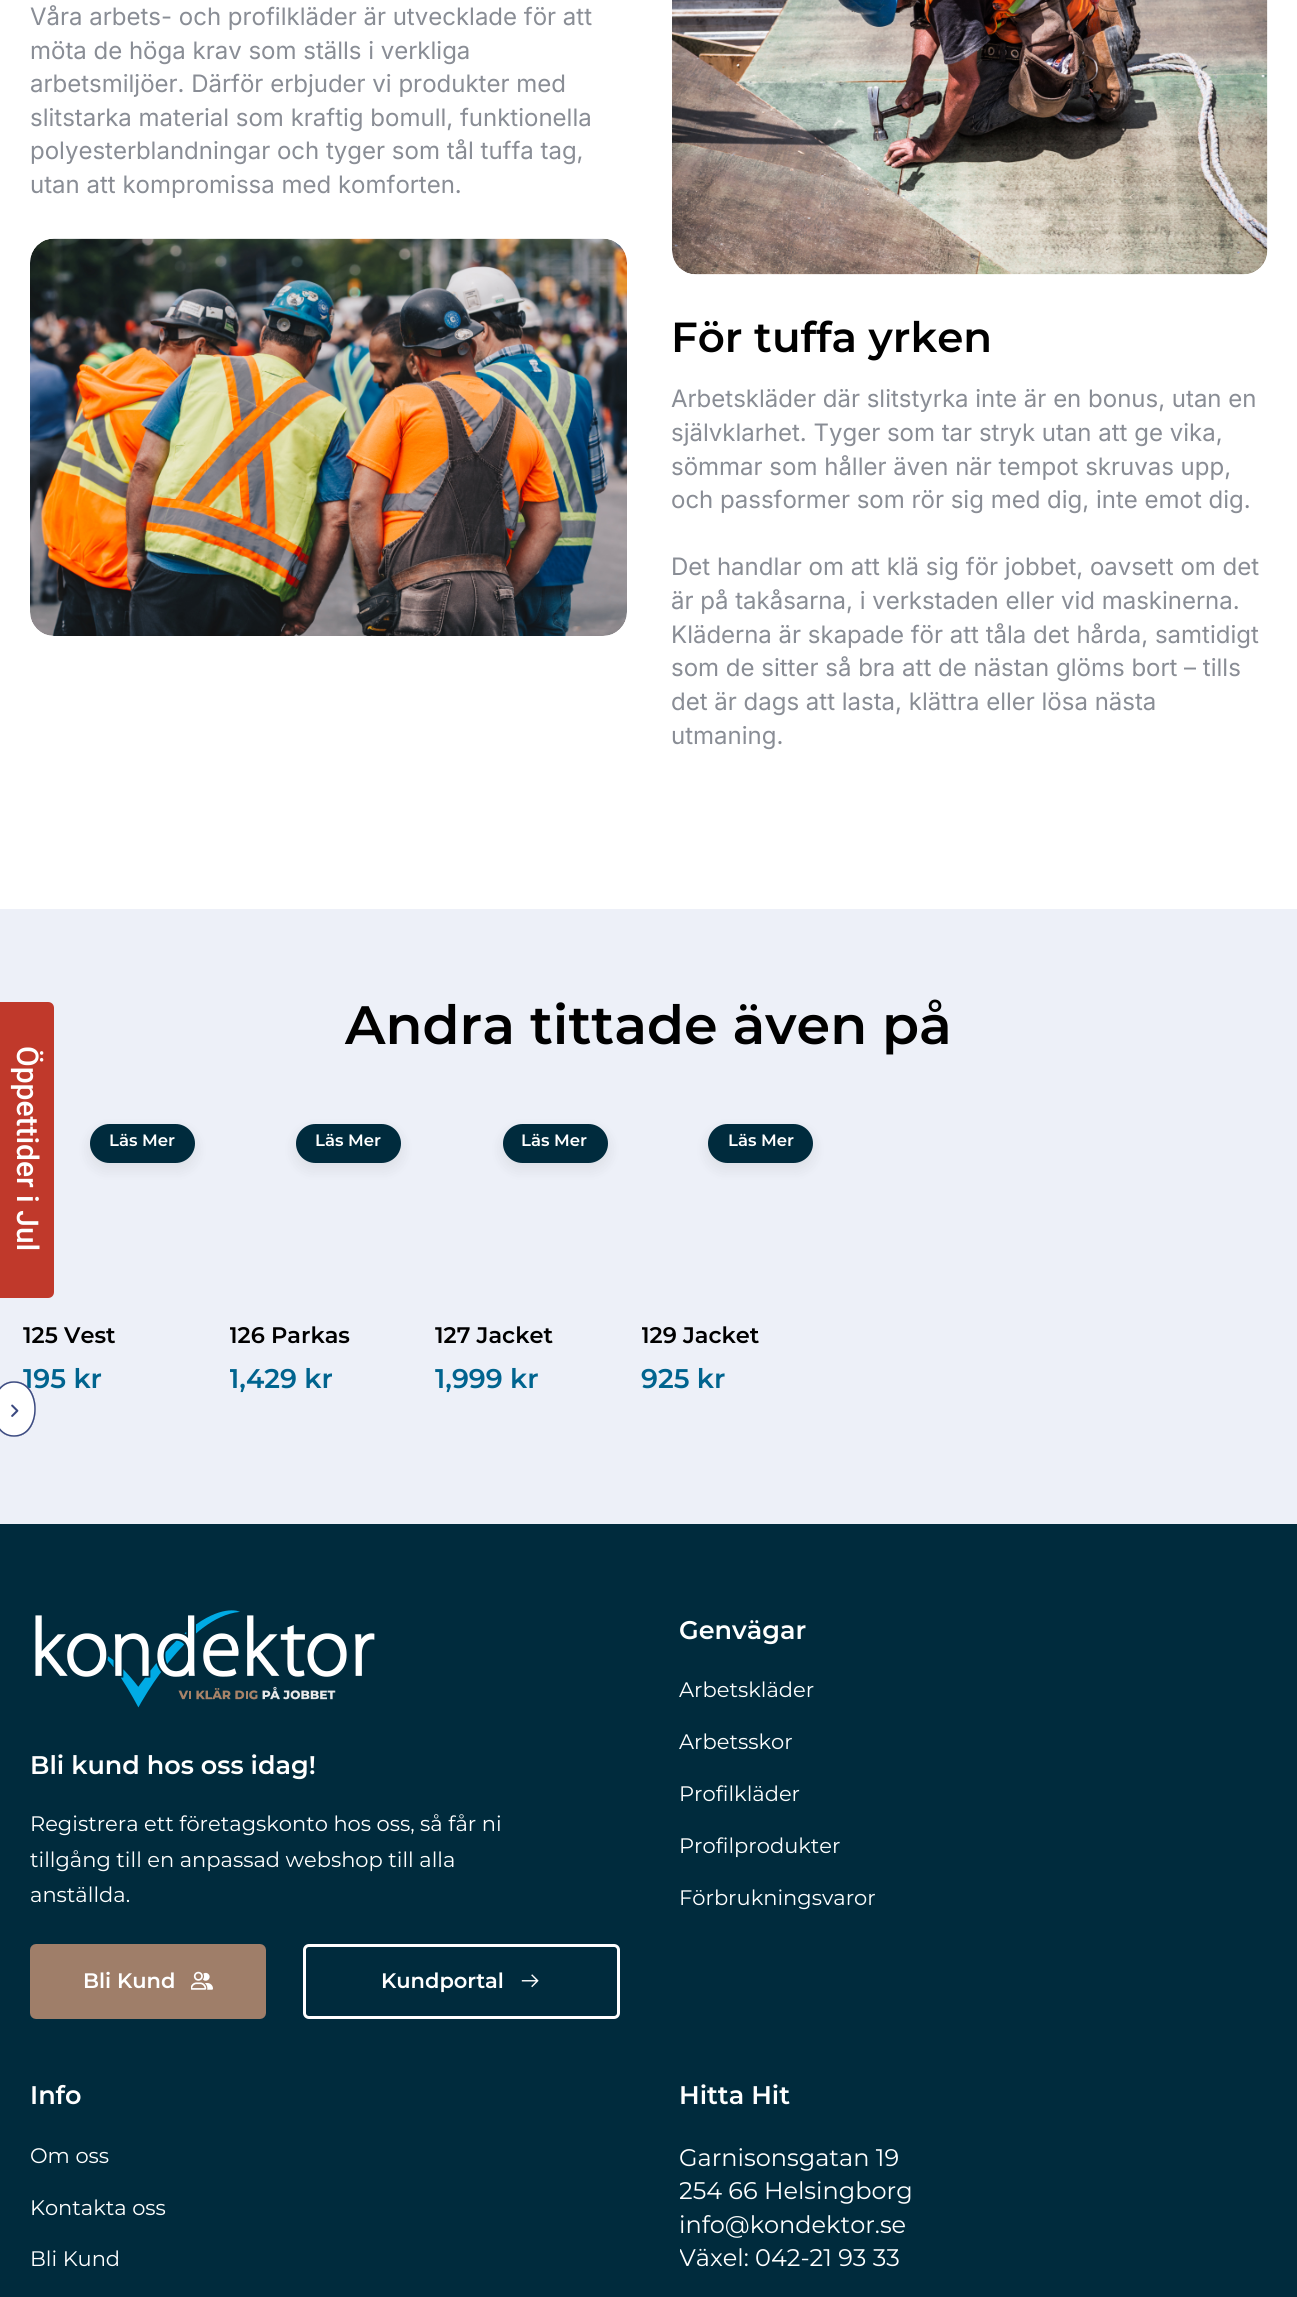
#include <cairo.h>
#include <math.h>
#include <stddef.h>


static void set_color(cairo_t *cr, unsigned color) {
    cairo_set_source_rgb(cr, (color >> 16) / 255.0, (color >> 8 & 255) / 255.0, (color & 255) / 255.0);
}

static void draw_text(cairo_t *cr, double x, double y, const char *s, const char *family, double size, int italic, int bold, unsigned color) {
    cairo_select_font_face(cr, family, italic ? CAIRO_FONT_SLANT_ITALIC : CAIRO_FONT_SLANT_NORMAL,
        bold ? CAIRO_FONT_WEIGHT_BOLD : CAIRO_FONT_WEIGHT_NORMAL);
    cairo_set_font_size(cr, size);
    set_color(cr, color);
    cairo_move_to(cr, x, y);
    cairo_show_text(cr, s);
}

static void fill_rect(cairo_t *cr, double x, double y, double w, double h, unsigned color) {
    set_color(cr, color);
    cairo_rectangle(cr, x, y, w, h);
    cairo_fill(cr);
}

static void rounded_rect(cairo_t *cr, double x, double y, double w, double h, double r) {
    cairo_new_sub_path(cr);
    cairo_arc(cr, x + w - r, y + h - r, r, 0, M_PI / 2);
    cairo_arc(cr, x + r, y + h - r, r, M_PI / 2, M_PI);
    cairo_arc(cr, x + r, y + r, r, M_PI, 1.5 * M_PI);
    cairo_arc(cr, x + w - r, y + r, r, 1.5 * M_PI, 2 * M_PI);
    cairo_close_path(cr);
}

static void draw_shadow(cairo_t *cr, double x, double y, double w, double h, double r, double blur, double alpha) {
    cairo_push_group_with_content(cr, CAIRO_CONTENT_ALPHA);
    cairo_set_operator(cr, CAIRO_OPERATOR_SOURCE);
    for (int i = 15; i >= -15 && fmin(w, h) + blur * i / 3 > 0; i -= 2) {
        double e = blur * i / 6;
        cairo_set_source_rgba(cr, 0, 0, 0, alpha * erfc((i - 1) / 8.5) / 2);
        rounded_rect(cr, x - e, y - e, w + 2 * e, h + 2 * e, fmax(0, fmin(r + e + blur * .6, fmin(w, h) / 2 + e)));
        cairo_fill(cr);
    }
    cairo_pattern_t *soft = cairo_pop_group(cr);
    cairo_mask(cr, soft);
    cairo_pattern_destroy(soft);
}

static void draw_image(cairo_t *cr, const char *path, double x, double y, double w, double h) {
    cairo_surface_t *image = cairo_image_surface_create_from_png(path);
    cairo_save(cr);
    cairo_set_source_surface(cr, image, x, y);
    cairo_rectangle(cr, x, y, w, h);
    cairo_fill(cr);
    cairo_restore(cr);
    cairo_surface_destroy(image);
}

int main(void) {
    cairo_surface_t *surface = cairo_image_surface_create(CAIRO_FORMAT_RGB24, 1297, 2297);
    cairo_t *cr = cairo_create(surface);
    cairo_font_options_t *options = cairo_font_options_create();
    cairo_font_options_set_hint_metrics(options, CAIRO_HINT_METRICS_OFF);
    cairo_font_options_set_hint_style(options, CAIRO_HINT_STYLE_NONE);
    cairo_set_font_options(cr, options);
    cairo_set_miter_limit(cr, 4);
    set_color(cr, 0xFFFFFF);
    cairo_paint(cr);
    draw_text(cr, 30, 25, "Våra arbets- och profilkläder är utvecklade för att", "Inter", 24, 0, 0, 0x898D95);
    draw_text(cr, 30, 59, "möta de höga krav som ställs i verkliga", "Inter", 24, 0, 0, 0x898D95);
    draw_text(cr, 30, 92, "arbetsmiljöer. Därför erbjuder vi produkter med", "Inter", 24, 0, 0, 0x898D95);
    draw_text(cr, 30, 126, "slitstarka material som kraftig bomull, funktionella", "Inter", 24, 0, 0, 0x898D95);
    draw_text(cr, 30, 159, "polyesterblandningar och tyger som tål tuffa tag,", "Inter", 24, 0, 0, 0x898D95);
    draw_text(cr, 30, 193, "utan att kompromissa med komforten.", "Inter", 24, 0, 0, 0x898D95);
    draw_image(cr, "assets/img1.png", 30, 238, 597, 398);
    draw_image(cr, "assets/img2.png", 672, 0, 596, 275);
    draw_text(cr, 671, 352, "För tuffa yrken", "Montserrat SemiBold", 42, 0, 0, 0x000000);
    draw_text(cr, 671, 407, "Arbetskläder där slitstyrka inte är en bonus, utan en", "Inter", 24, 0, 0, 0x898D95);
    draw_text(cr, 671, 441, "självklarhet. Tyger som tar stryk utan att ge vika,", "Inter", 24, 0, 0, 0x898D95);
    draw_text(cr, 671, 475, "sömmar som håller även när tempot skruvas upp,", "Inter", 24, 0, 0, 0x898D95);
    draw_text(cr, 671, 508, "och passformer som rör sig med dig, inte emot dig.", "Inter", 24, 0, 0, 0x898D95);
    draw_text(cr, 671, 575, "Det handlar om att klä sig för jobbet, oavsett om det", "Inter", 24, 0, 0, 0x898D95);
    draw_text(cr, 671, 609, "är på takåsarna, i verkstaden eller vid maskinerna.", "Inter", 24, 0, 0, 0x898D95);
    draw_text(cr, 671, 643, "Kläderna är skapade för att tåla det hårda, samtidigt", "Inter", 24, 0, 0, 0x898D95);
    draw_text(cr, 671, 676, "som de sitter så bra att de nästan glöms bort – tills", "Inter", 24, 0, 0, 0x898D95);
    draw_text(cr, 671, 710, "det är dags att lasta, klättra eller lösa nästa", "Inter", 24, 0, 0, 0x898D95);
    draw_text(cr, 671, 744, "utmaning.", "Inter", 24, 0, 0, 0x898D95);
    fill_rect(cr, 0, 909, 1297, 615, 0xEDF0F8);
    draw_text(cr, 345, 1044, "Andra tittade även på", "Montserrat SemiBold", 54, 0, 0, 0x000000);
    set_color(cr, 0x000000);
    draw_shadow(cr, 90, 1130, 105, 39, 19.5, 7.5, 0.08);
    set_color(cr, 0x002B3D);
    rounded_rect(cr, 90, 1124, 105, 39, 19.5);
    cairo_fill(cr);
    draw_text(cr, 109, 1146, "Läs Mer", "Montserrat SemiBold", 16.5, 0, 0, 0xFFFFFF);
    cairo_save(cr);
    cairo_rectangle(cr, 23, 1320, 184, 32);
    cairo_clip(cr);
    draw_text(cr, 23, 1343, "125 Vest", "Montserrat SemiBold", 22.5, 0, 0, 0x000000);
    cairo_restore(cr);
    cairo_save(cr);
    cairo_rectangle(cr, 23, 1112, 184, 330);
    cairo_clip(cr);
    draw_text(cr, 23, 1388, "195 kr", "Montserrat SemiBold", 27, 0, 0, 0x00648F);
    cairo_restore(cr);
    set_color(cr, 0x000000);
    draw_shadow(cr, 296, 1130, 105, 39, 19.5, 7.5, 0.08);
    set_color(cr, 0x002B3D);
    rounded_rect(cr, 296, 1124, 105, 39, 19.5);
    cairo_fill(cr);
    draw_text(cr, 315, 1146, "Läs Mer", "Montserrat SemiBold", 16.5, 0, 0, 0xFFFFFF);
    cairo_save(cr);
    cairo_rectangle(cr, 230, 1320, 183, 32);
    cairo_clip(cr);
    draw_text(cr, 229, 1343, "126 Parkas", "Montserrat SemiBold", 22.5, 0, 0, 0x000000);
    cairo_restore(cr);
    cairo_save(cr);
    cairo_rectangle(cr, 230, 1112, 183, 330);
    cairo_clip(cr);
    draw_text(cr, 229, 1388, "1,429 kr", "Montserrat SemiBold", 27, 0, 0, 0x00648F);
    cairo_restore(cr);
    set_color(cr, 0x000000);
    draw_shadow(cr, 503, 1130, 105, 39, 19.5, 7.5, 0.08);
    set_color(cr, 0x002B3D);
    rounded_rect(cr, 503, 1124, 105, 39, 19.5);
    cairo_fill(cr);
    draw_text(cr, 521, 1146, "Läs Mer", "Montserrat SemiBold", 16.5, 0, 0, 0xFFFFFF);
    draw_text(cr, 435, 1343, "127 Jacket", "Montserrat SemiBold", 22.5, 0, 0, 0x000000);
    draw_text(cr, 435, 1388, "1,999 kr", "Montserrat SemiBold", 27, 0, 0, 0x00648F);
    set_color(cr, 0x000000);
    draw_shadow(cr, 708, 1130, 105, 39, 19.5, 7.5, 0.08);
    set_color(cr, 0x002B3D);
    rounded_rect(cr, 708, 1124, 105, 39, 19.5);
    cairo_fill(cr);
    draw_text(cr, 728, 1146, "Läs Mer", "Montserrat SemiBold", 16.5, 0, 0, 0xFFFFFF);
    cairo_save(cr);
    cairo_rectangle(cr, 642, 1320, 183, 32);
    cairo_clip(cr);
    draw_text(cr, 641, 1343, "129 Jacket", "Montserrat SemiBold", 22.5, 0, 0, 0x000000);
    cairo_restore(cr);
    draw_text(cr, 641, 1388, "925 kr", "Montserrat SemiBold", 27, 0, 0, 0x00648F);
    cairo_new_path(cr);
    cairo_move_to(cr, 14, 1382);
    cairo_curve_to(cr, 42, 1382, 42, 1436, 14, 1436);
    cairo_curve_to(cr, -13.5, 1436, -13.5, 1382, 14, 1382);
    cairo_close_path(cr);
    set_color(cr, 0x3A4980);
    cairo_set_line_width(cr, 1.5);
    cairo_stroke(cr);
    set_color(cr, 0xFFFFFF);
    cairo_new_path(cr);
    cairo_move_to(cr, 14, 1381);
    cairo_curve_to(cr, 26, 1381, 36, 1393.5, 36, 1409);
    cairo_curve_to(cr, 36, 1424.5, 26, 1437, 14, 1437);
    cairo_curve_to(cr, 2, 1437, -8, 1424.5, -8, 1409);
    cairo_curve_to(cr, -8, 1393.5, 2, 1381, 14, 1381);
    cairo_close_path(cr);
    cairo_fill(cr);
    cairo_new_path(cr);
    cairo_move_to(cr, 14, 1382);
    cairo_curve_to(cr, 42, 1382, 42, 1436, 14, 1436);
    cairo_curve_to(cr, -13.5, 1436, -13.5, 1382, 14, 1382);
    cairo_close_path(cr);
    set_color(cr, 0x3A4980);
    cairo_stroke(cr);
    draw_image(cr, "assets/img3.png", 11, 1404, 8, 13);
    set_color(cr, 0xC0392B);
    cairo_new_path(cr);
    cairo_move_to(cr, 0, 1002);
    cairo_line_to(cr, 48, 1002);
    cairo_curve_to(cr, 51.5, 1002, 54, 1004.5, 54, 1008);
    cairo_line_to(cr, 54, 1292);
    cairo_curve_to(cr, 54, 1295.5, 51.5, 1298, 48, 1298);
    cairo_line_to(cr, 0, 1298);
    cairo_close_path(cr);
    cairo_fill(cr);
    cairo_save(cr);
    cairo_translate(cr, 17, 1046);
    cairo_rotate(cr, 90 * M_PI / 180);
    draw_text(cr, 0, 0, "Öppettider i Jul", "Roboto Medium", 30, 0, 0, 0xFFFFFF);
    cairo_restore(cr);
    fill_rect(cr, 0, 1524, 1297, 773, 0x002B3D);
    draw_image(cr, "assets/img4.png", 35, 1610, 340, 98);
    draw_text(cr, 30, 1774, "Bli kund hos oss idag!", "Montserrat SemiBold", 25.5, 0, 0, 0xFFFFFF);
    draw_text(cr, 30, 1831, "Registrera ett företagskonto hos oss, så får ni", "Montserrat", 21, 0, 0, 0xFFFFFF);
    draw_text(cr, 30, 1867, "tillgång till en anpassad webshop till alla", "Montserrat", 21, 0, 0, 0xFFFFFF);
    draw_text(cr, 30, 1902, "anställda.", "Montserrat", 21, 0, 0, 0xFFFFFF);
    set_color(cr, 0x9F7E69);
    rounded_rect(cr, 32.5, 1946.5, 231, 70, 3.5);
    cairo_fill_preserve(cr);
    cairo_set_line_width(cr, 5);
    cairo_stroke(cr);
    draw_text(cr, 83, 1988, "Bli Kund", "Montserrat SemiBold", 21, 0, 0, 0xFFFFFF);
    draw_image(cr, "assets/img5.png", 191, 1971, 22, 19);
    rounded_rect(cr, 304.5, 1945.5, 314, 72, 4.5);
    cairo_set_line_width(cr, 3);
    cairo_stroke(cr);
    draw_text(cr, 381, 1988, "Kundportal", "Montserrat SemiBold", 21, 0, 0, 0xFFFFFF);
    draw_image(cr, "assets/img6.png", 521, 1974, 18, 14);
    draw_text(cr, 679, 1639, "Genvägar", "Montserrat SemiBold", 25.5, 0, 0, 0xFFFFFF);
    draw_text(cr, 679, 1697, "Arbetskläder", "Montserrat", 21, 0, 0, 0xFFFFFF);
    draw_text(cr, 679, 1749, "Arbetsskor", "Montserrat", 21, 0, 0, 0xFFFFFF);
    draw_text(cr, 679, 1801, "Profilkläder", "Montserrat", 21, 0, 0, 0xFFFFFF);
    draw_text(cr, 679, 1853, "Profilprodukter", "Montserrat", 21, 0, 0, 0xFFFFFF);
    draw_text(cr, 679, 1905, "Förbrukningsvaror", "Montserrat", 21, 0, 0, 0xFFFFFF);
    draw_text(cr, 30, 2104, "Info", "Montserrat SemiBold", 25.5, 0, 0, 0xFFFFFF);
    draw_text(cr, 30, 2163, "Om oss", "Montserrat", 21, 0, 0, 0xFFFFFF);
    draw_text(cr, 30, 2215, "Kontakta oss", "Montserrat", 21, 0, 0, 0xFFFFFF);
    draw_text(cr, 30, 2266, "Bli Kund", "Montserrat", 21, 0, 0, 0xFFFFFF);
    draw_text(cr, 679, 2104, "Hitta Hit", "Montserrat SemiBold", 25.5, 0, 0, 0xFFFFFF);
    draw_text(cr, 679, 2166, "Garnisonsgatan 19", "Montserrat", 24, 0, 0, 0xFFFFFF);
    cairo_save(cr);
    cairo_rectangle(cr, 680, 2142, 588, 134);
    cairo_clip(cr);
    draw_text(cr, 679, 2199, "254 66 Helsingborg", "Montserrat", 24, 0, 0, 0xFFFFFF);
    cairo_restore(cr);
    draw_text(cr, 679, 2233, "info@kondektor.se", "Montserrat", 24, 0, 0, 0xFFFFFF);
    cairo_save(cr);
    cairo_rectangle(cr, 680, 2142, 588, 134);
    cairo_clip(cr);
    draw_text(cr, 679, 2266, "Växel: 042-21 93 33", "Montserrat", 24, 0, 0, 0xFFFFFF);
    cairo_restore(cr);
    cairo_surface_write_to_png(surface, "output.png");
    cairo_font_options_destroy(options);
    cairo_destroy(cr);
    cairo_surface_destroy(surface);
    return 0;
}
